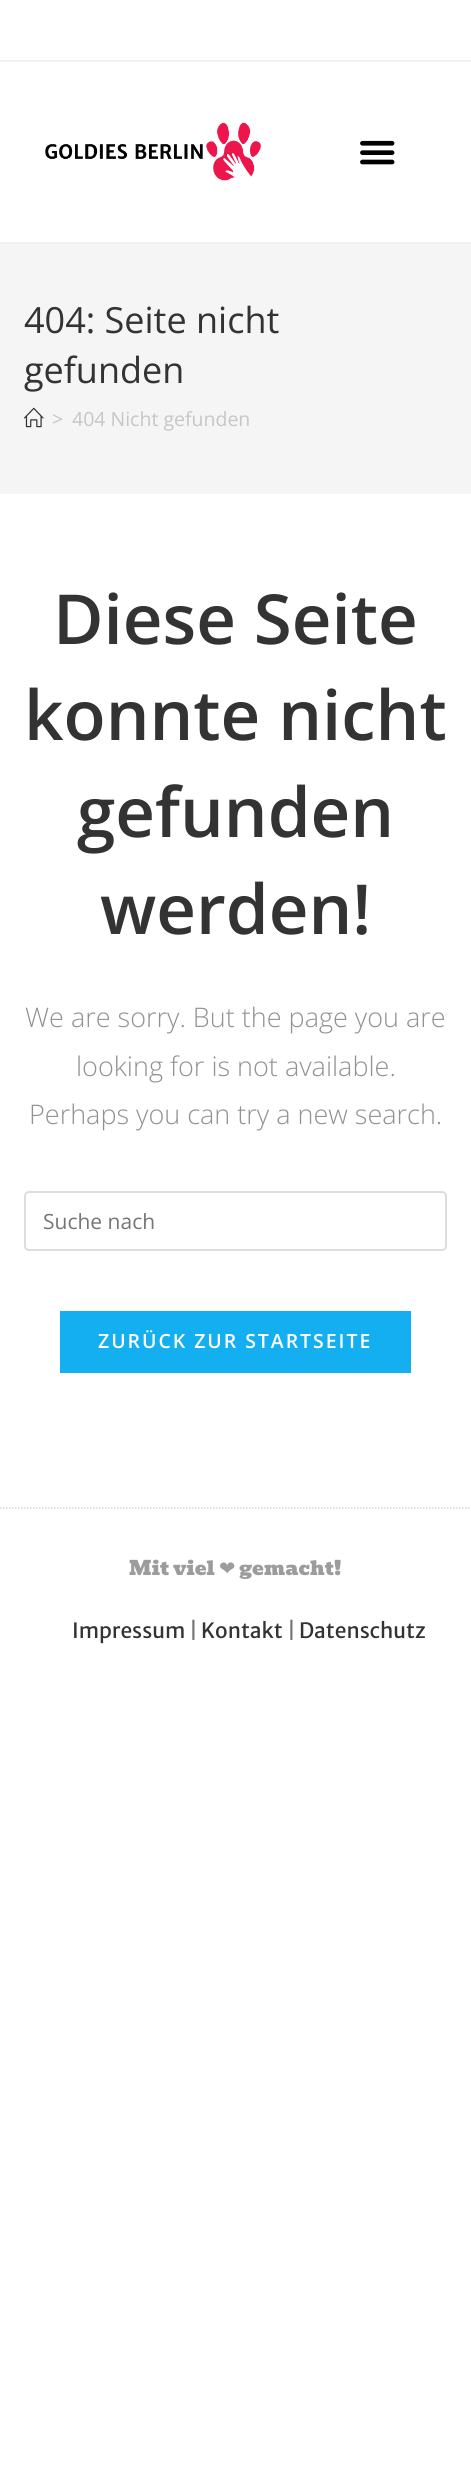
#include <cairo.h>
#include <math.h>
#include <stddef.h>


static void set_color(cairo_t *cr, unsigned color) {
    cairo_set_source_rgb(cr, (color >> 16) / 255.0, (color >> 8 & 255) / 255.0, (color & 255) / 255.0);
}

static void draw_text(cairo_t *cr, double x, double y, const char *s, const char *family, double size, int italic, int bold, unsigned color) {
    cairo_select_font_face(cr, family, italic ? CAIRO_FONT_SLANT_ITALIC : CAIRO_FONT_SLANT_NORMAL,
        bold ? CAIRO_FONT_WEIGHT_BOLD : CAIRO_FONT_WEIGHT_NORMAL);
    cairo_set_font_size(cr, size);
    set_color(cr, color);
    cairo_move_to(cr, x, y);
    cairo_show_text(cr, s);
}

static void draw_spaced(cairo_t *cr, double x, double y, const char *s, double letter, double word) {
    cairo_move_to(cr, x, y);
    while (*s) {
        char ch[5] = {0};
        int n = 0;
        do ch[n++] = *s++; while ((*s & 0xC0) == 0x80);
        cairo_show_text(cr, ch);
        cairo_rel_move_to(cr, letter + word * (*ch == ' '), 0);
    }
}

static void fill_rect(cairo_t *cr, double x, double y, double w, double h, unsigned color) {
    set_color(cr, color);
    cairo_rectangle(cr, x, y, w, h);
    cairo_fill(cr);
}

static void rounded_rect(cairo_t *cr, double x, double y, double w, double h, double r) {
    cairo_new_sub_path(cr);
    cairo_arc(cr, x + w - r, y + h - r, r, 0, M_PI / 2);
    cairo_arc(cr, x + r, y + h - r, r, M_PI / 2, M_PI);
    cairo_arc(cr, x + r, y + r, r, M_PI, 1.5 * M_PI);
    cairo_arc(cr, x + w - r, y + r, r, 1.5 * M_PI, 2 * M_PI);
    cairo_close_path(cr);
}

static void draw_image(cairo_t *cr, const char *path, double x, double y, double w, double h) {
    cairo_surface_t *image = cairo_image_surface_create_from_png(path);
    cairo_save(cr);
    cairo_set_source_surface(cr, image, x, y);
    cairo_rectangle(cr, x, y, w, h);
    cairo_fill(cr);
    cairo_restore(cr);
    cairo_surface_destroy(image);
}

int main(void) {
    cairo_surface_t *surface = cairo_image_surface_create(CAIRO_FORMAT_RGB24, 471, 2484);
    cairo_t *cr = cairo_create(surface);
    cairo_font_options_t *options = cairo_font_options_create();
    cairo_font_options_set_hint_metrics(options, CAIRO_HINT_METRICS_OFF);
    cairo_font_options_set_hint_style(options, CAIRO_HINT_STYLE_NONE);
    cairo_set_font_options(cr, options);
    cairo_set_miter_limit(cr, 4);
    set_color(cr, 0xFFFFFF);
    cairo_paint(cr);
    fill_rect(cr, 0, 60, 471, 2, 0xF1F1F1);
    fill_rect(cr, 0, 242, 471, 2, 0xF1F1F1);
    draw_image(cr, "assets/img1.png", 45, 122, 216, 59);
    draw_image(cr, "assets/img2.png", 360, 140, 35, 25);
    fill_rect(cr, 0, 244, 471, 250, 0xF5F5F5);
    draw_text(cr, 24, 333, "404: Seite nicht", "Open Sans", 36, 0, 0, 0x333333);
    draw_text(cr, 24, 383, "gefunden", "Open Sans", 36, 0, 0, 0x333333);
    draw_image(cr, "assets/img3.png", 24, 407, 20, 21);
    draw_text(cr, 52, 426, ">", "Open Sans", 19.5, 0, 0, 0xC6C6C6);
    draw_text(cr, 72, 426, "404 Nicht gefunden", "Open Sans", 19.5, 0, 0, 0xC6C6C6);
    draw_text(cr, 53, 644, "Diese Seite", "Open Sans SemiBold", 69, 0, 0, 0x333333);
    draw_text(cr, 24, 740, "konnte nicht", "Open Sans SemiBold", 69, 0, 0, 0x333333);
    draw_text(cr, 77, 837, "gefunden", "Open Sans SemiBold", 69, 0, 0, 0x333333);
    draw_text(cr, 100, 934, "werden!", "Open Sans SemiBold", 69, 0, 0, 0x333333);
    draw_text(cr, 25, 1027, "We are sorry. But the page you are", "Open Sans Light", 27, 0, 0, 0x929292);
    draw_text(cr, 76, 1076, "looking for is not available.", "Open Sans Light", 27, 0, 0, 0x929292);
    draw_text(cr, 29, 1124, "Perhaps you can try a new search.", "Open Sans Light", 27, 0, 0, 0x929292);
    rounded_rect(cr, 25, 1192, 421, 58, 4);
    set_color(cr, 0xDDDDDD);
    cairo_stroke(cr);
    draw_text(cr, 43, 1229, "Suche nach", "Open Sans", 21, 0, 0, 0x757575);
    fill_rect(cr, 60, 1311, 351, 62, 0x13AFF0);
    cairo_select_font_face(cr, "Open Sans SemiBold", CAIRO_FONT_SLANT_NORMAL, CAIRO_FONT_WEIGHT_NORMAL);
    cairo_set_font_size(cr, 19.5);
    set_color(cr, 0xFFFFFF);
    draw_spaced(cr, 98, 1348, "ZURÜCK ZUR STARTSEITE", 1.95, 0);
    cairo_new_path(cr);
    cairo_move_to(cr, 0, 1508);
    cairo_line_to(cr, 471, 1508);
    set_color(cr, 0xD6D6D6);
    cairo_set_line_width(cr, 1.5);
    cairo_set_dash(cr, (double[]){1.5, 1.5}, 2, 0);
    cairo_stroke(cr);
    draw_text(cr, 129, 1575, "Mit viel", "Bevan", 19.5, 0, 0, 0x9C9C9C);
    draw_text(cr, 219, 1575, "❤", "DejaVu Sans", 19.5, 0, 0, 0x9C9C9C);
    draw_text(cr, 239, 1575, "gemacht!", "Bevan", 19.5, 0, 0, 0x9C9C9C);
    draw_text(cr, 72, 1638, "Impressum", "Merriweather Sans", 21, 0, 0, 0x333333);
    draw_text(cr, 189, 1638, "|", "Merriweather Sans", 21, 0, 0, 0x757575);
    draw_text(cr, 201, 1638, "Kontakt", "Merriweather Sans", 21, 0, 0, 0x333333);
    draw_text(cr, 287, 1638, "|", "Merriweather Sans", 21, 0, 0, 0x757575);
    draw_text(cr, 299, 1638, "Datenschutz", "Merriweather Sans", 21, 0, 0, 0x333333);
    cairo_surface_write_to_png(surface, "output.png");
    cairo_font_options_destroy(options);
    cairo_destroy(cr);
    cairo_surface_destroy(surface);
    return 0;
}
